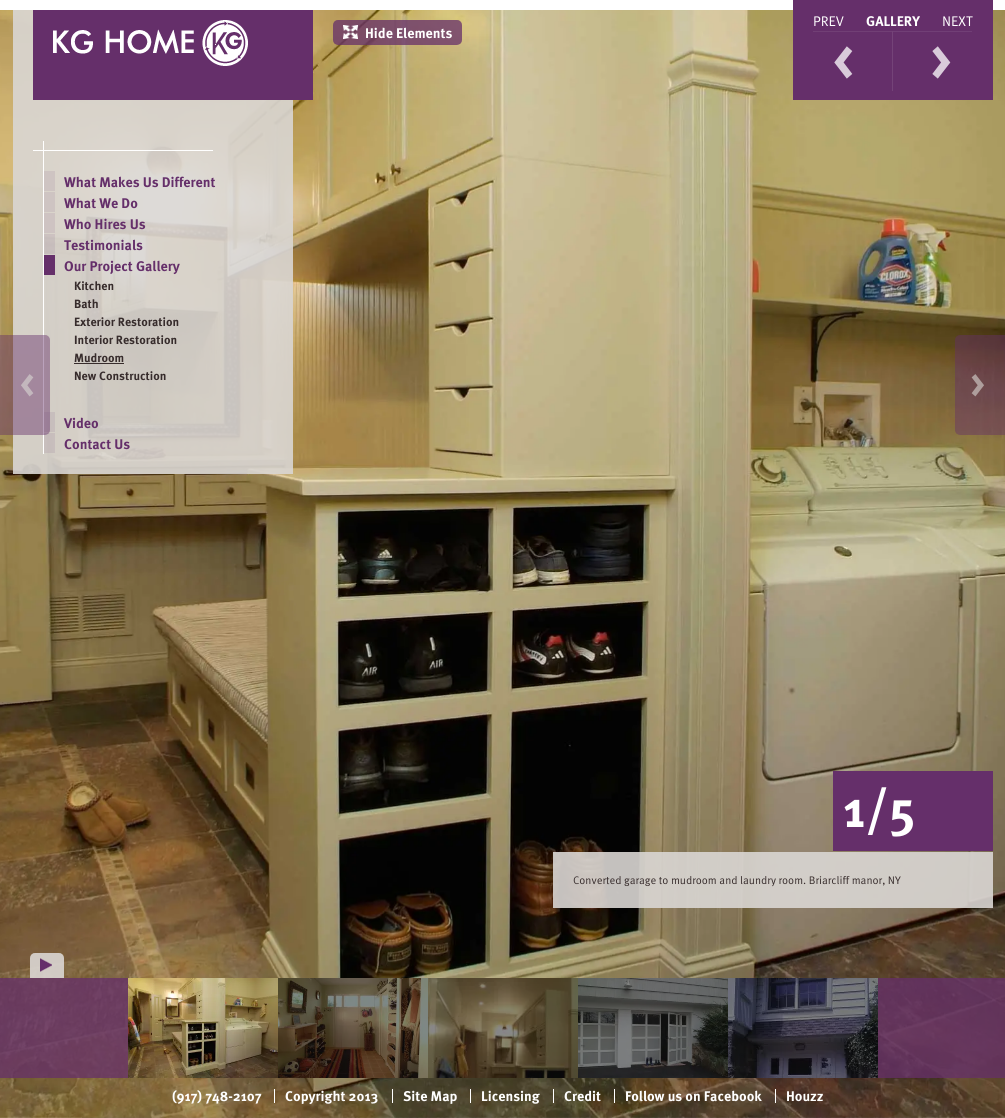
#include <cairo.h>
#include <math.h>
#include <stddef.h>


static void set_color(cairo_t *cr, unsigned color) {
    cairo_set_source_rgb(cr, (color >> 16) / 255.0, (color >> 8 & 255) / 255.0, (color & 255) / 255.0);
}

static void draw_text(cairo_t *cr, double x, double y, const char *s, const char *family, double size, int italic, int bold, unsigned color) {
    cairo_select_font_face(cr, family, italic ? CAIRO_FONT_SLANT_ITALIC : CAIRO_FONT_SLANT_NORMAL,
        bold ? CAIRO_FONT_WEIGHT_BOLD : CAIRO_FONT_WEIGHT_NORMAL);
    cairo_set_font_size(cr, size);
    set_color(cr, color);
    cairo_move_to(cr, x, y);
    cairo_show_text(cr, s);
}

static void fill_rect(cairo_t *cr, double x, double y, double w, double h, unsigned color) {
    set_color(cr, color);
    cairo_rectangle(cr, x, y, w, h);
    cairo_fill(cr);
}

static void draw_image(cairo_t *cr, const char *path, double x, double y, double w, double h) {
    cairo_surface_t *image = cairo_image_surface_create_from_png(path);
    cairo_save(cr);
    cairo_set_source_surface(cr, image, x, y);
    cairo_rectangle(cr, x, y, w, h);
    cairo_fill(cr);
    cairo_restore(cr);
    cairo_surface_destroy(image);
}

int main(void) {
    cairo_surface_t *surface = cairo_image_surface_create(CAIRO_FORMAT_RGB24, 1005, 1118);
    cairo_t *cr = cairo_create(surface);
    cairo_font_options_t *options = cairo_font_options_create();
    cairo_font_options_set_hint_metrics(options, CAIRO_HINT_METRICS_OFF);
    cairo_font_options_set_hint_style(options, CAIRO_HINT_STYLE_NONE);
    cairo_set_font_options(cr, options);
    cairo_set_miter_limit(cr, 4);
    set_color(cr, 0xFFFFFF);
    cairo_paint(cr);
    draw_image(cr, "assets/img2.png", 82, 1117, 841, 1);
    draw_image(cr, "assets/img1.png", 0, 10, 1005, 1108);
    fill_rect(cr, 793, 0, 200, 100, 0x652F6A);
    draw_text(cr, 813, 26, "PREV", "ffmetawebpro", 14, 0, 0, 0xFFFFFF);
    fill_rect(cr, 813, 31, 80, 1, 0x713F75);
    draw_text(cr, 833, 78, "<", "ffmetawebpro", 52, 0, 1, 0xD9CBDA);
    draw_text(cr, 866, 26, "GALLERY", "ffmetawebpro", 14, 0, 1, 0xFFFFFF);
    draw_text(cr, 942, 26, "NEXT", "ffmetawebpro", 14, 0, 0, 0xFFFFFF);
    cairo_set_source_rgba(cr, 0.459, 0.267, 0.475, 0.75);
    cairo_rectangle(cr, 892, 31, 80, 1);
    cairo_fill(cr);
    fill_rect(cr, 892, 31, 1, 60, 0x744378);
    draw_text(cr, 930, 78, ">", "ffmetawebpro", 52, 0, 1, 0xD9CBDA);
    cairo_set_source_rgba(cr, 0.855, 0.839, 0.827, 0.9);
    cairo_rectangle(cr, 13, 10, 280, 464);
    cairo_fill(cr);
    fill_rect(cr, 33, 10, 280, 90, 0x652F6A);
    draw_image(cr, "assets/img3.png", 53, 20, 195, 46);
    fill_rect(cr, 43, 141, 1, 313, 0xFFFFFF);
    fill_rect(cr, 33, 150, 180, 1, 0xFFFFFF);
    fill_rect(cr, 44, 171, 11, 20, 0xCEC4C2);
    draw_text(cr, 64, 187, "What Makes Us Different", "ffmetawebpro", 14, 0, 1, 0x652F6A);
    fill_rect(cr, 44, 192, 11, 20, 0xCEC4C2);
    draw_text(cr, 64, 208, "What We Do", "ffmetawebpro", 14, 0, 1, 0x652F6A);
    fill_rect(cr, 44, 213, 11, 20, 0xCEC3C2);
    draw_text(cr, 64, 229, "Who Hires Us", "ffmetawebpro", 14, 0, 1, 0x652F6A);
    cairo_set_source_rgba(cr, 0.384, 0.192, 0.424, 0.1);
    cairo_rectangle(cr, 44, 234, 11, 20);
    cairo_fill(cr);
    draw_text(cr, 64, 250, "Testimonials", "ffmetawebpro", 14, 0, 1, 0x652F6A);
    fill_rect(cr, 44, 255, 11, 20, 0x652F6A);
    draw_text(cr, 64, 271, "Our Project Gallery", "ffmetawebpro", 14, 0, 1, 0x652F6A);
    draw_text(cr, 74, 290, "Kitchen", "ffmetawebpro", 12, 0, 1, 0x372C2C);
    draw_text(cr, 74, 308, "Bath", "ffmetawebpro", 12, 0, 1, 0x372C2C);
    draw_text(cr, 74, 326, "Exterior Restoration", "ffmetawebpro", 12, 0, 1, 0x372C2C);
    draw_text(cr, 74, 344, "Interior Restoration", "ffmetawebpro", 12, 0, 1, 0x372C2C);
    draw_text(cr, 74, 362, "Mudroom", "ffmetawebpro", 12, 0, 1, 0x372C2C);
    fill_rect(cr, 74, 363, 50, 1, 0x372C2C);
    draw_text(cr, 74, 380, "New Construction", "ffmetawebpro", 12, 0, 1, 0x372C2C);
    cairo_set_source_rgba(cr, 0.384, 0.192, 0.424, 0.1);
    cairo_rectangle(cr, 44, 412, 11, 20);
    cairo_fill(cr);
    draw_text(cr, 64, 428, "Video", "ffmetawebpro", 14, 0, 1, 0x652F6A);
    cairo_set_source_rgba(cr, 0.384, 0.192, 0.424, 0.1);
    cairo_rectangle(cr, 44, 433, 11, 20);
    cairo_fill(cr);
    draw_text(cr, 64, 449, "Contact Us", "ffmetawebpro", 14, 0, 1, 0x652F6A);
    draw_text(cr, 172, 1101, "(917) 748-2107", "ffmetawebpro", 14, 0, 1, 0xFFFFFF);
    fill_rect(cr, 274, 1089, 1, 14, 0xFFFFFF);
    draw_text(cr, 285, 1101, "Copyright 2013", "ffmetawebpro", 14, 0, 1, 0xFFFFFF);
    fill_rect(cr, 392, 1089, 1, 14, 0xFFFFFF);
    draw_text(cr, 403, 1101, "Site Map", "ffmetawebpro", 14, 0, 1, 0xFFFFFF);
    fill_rect(cr, 470, 1089, 1, 14, 0xFFFFFF);
    draw_text(cr, 481, 1101, "Licensing", "ffmetawebpro", 14, 0, 1, 0xFFFFFF);
    fill_rect(cr, 553, 1089, 1, 14, 0xFFFFFF);
    draw_text(cr, 564, 1101, "Credit", "ffmetawebpro", 14, 0, 1, 0xFFFFFF);
    fill_rect(cr, 614, 1089, 1, 14, 0xFFFFFF);
    draw_text(cr, 625, 1101, "Follow us on Facebook", "ffmetawebpro", 14, 0, 1, 0xFFFFFF);
    fill_rect(cr, 775, 1089, 1, 14, 0xFFFFFF);
    draw_text(cr, 786, 1101, "Houzz", "ffmetawebpro", 14, 0, 1, 0xFFFFFF);
    draw_image(cr, "assets/img4.png", 333, 20, 129, 25);
    draw_image(cr, "assets/img5.png", 343, 25, 15, 14);
    draw_text(cr, 365, 38, "Hide Elements", "ffmetawebpro", 14, 0, 1, 0xFFFFFF);
    draw_image(cr, "assets/img6.png", 0, 335, 50, 100);
    draw_text(cr, 20, 396, "<", "ffmetawebpro", 36, 0, 1, 0xC3B7BD);
    draw_image(cr, "assets/img7.png", 955, 335, 50, 100);
    draw_text(cr, 970, 396, ">", "ffmetawebpro", 36, 0, 1, 0xAE9E9C);
    fill_rect(cr, 833, 771, 160, 80, 0x652F6A);
    draw_text(cr, 843, 827, "1/5", "ffmetawebpro", 52, 0, 1, 0xFFFFFF);
    cairo_set_source_rgba(cr, 0.855, 0.839, 0.827, 0.9);
    cairo_rectangle(cr, 553, 852, 440, 56);
    cairo_fill(cr);
    draw_text(cr, 573, 884, "Converted garage to mudroom and laundry room. Briarcliff manor, NY", "ffmetawebpro", 11, 0, 0, 0x372C2C);
    cairo_set_source_rgba(cr, 0.396, 0.184, 0.412, 0.75);
    cairo_rectangle(cr, 0, 978, 1005, 100);
    cairo_fill(cr);
    draw_image(cr, "assets/img8.png", 30, 953, 34, 25);
    draw_image(cr, "assets/img9.png", 40, 958, 12, 14);
    draw_image(cr, "assets/img10.png", 128, 978, 150, 100);
    fill_rect(cr, 278, 978, 600, 100, 0x111111);
    draw_image(cr, "assets/img11.png", 278, 978, 150, 100);
    draw_image(cr, "assets/img12.png", 428, 978, 150, 100);
    draw_image(cr, "assets/img13.png", 578, 978, 150, 100);
    draw_image(cr, "assets/img14.png", 728, 978, 150, 100);
    cairo_surface_write_to_png(surface, "output.png");
    cairo_font_options_destroy(options);
    cairo_destroy(cr);
    cairo_surface_destroy(surface);
    return 0;
}
